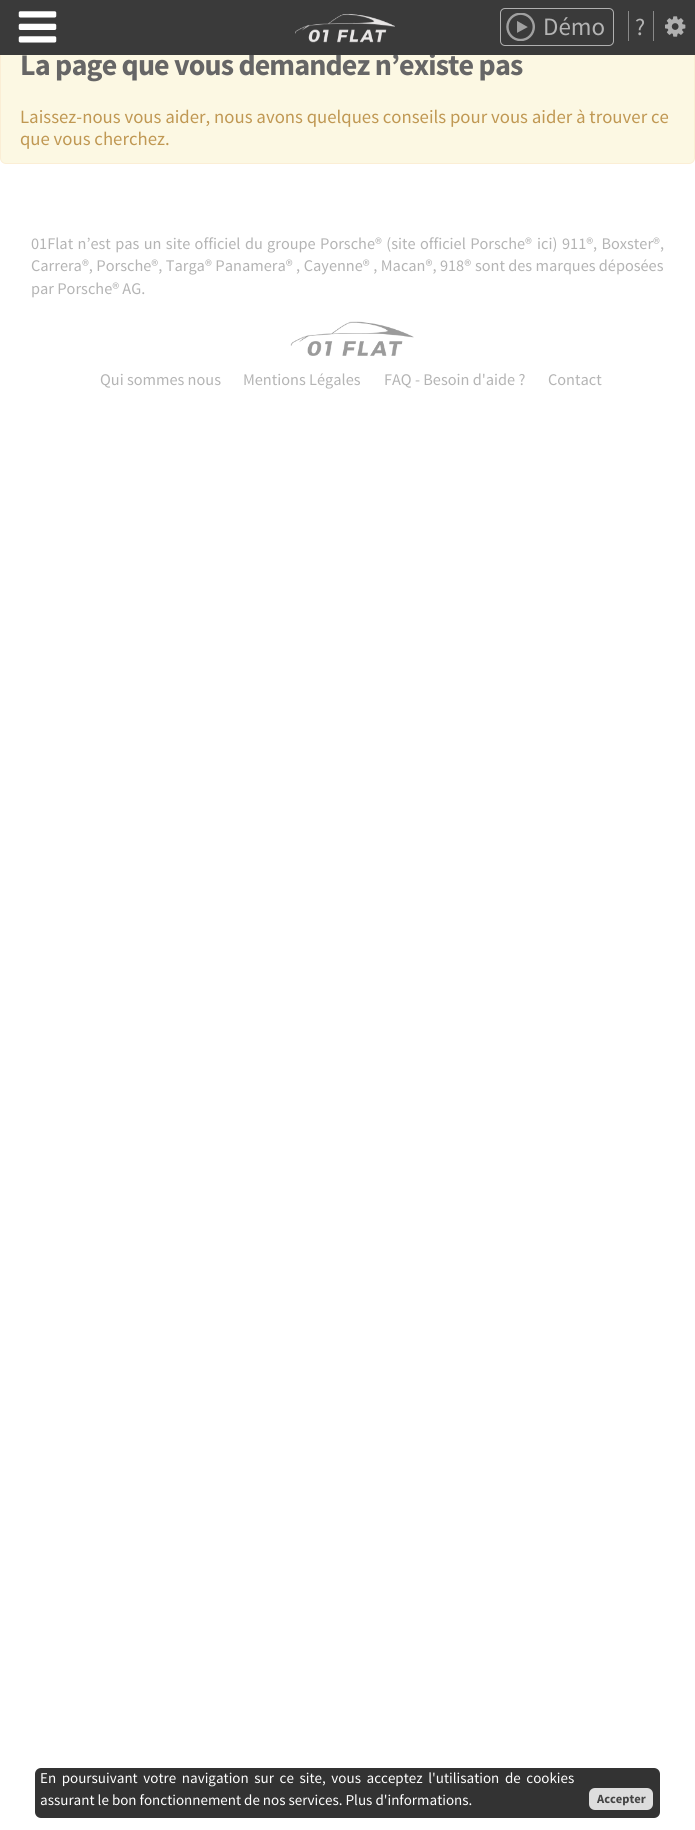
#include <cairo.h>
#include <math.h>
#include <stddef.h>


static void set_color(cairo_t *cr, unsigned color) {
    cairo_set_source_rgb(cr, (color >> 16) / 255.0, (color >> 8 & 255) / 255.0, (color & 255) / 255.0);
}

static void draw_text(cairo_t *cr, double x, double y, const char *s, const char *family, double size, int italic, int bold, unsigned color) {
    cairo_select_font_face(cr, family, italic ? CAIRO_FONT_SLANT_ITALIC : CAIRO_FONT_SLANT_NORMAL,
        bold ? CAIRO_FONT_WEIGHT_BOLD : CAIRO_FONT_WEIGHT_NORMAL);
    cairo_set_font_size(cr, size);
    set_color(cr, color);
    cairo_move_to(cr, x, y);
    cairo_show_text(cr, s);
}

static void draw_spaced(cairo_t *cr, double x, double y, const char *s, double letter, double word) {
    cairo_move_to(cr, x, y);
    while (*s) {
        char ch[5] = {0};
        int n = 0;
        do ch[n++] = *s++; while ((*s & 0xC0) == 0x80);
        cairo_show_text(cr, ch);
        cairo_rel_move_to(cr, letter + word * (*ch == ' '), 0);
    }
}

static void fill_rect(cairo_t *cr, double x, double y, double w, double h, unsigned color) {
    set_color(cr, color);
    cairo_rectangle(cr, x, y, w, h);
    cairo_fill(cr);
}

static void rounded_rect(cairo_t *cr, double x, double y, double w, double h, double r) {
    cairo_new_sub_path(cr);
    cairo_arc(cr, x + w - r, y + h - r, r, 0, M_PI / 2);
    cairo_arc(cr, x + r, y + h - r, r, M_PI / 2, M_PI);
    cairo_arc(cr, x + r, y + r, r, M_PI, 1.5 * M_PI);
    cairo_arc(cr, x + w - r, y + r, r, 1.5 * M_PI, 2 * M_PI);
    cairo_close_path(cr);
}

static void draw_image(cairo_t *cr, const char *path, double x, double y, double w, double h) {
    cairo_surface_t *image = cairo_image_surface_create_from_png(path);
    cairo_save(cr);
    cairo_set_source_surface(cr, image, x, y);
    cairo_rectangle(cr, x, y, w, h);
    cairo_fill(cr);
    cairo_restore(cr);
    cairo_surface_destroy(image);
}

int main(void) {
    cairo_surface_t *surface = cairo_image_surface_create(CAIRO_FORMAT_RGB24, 695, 1830);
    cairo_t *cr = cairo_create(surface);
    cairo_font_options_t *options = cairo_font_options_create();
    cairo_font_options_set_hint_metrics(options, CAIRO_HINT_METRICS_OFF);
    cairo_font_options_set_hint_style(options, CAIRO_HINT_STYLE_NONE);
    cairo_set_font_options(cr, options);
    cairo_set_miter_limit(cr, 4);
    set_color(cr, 0xFFFFFF);
    cairo_paint(cr);
    set_color(cr, 0xFCF8E3);
    rounded_rect(cr, 0.5, 36.5, 694, 127, 5.5);
    cairo_fill_preserve(cr);
    set_color(cr, 0xFBEED5);
    cairo_set_line_width(cr, 1);
    cairo_stroke(cr);
    cairo_select_font_face(cr, "Source Sans Pro", CAIRO_FONT_SLANT_NORMAL, CAIRO_FONT_WEIGHT_BOLD);
    cairo_set_font_size(cr, 30);
    set_color(cr, 0x666666);
    draw_spaced(cr, 20, 75, "La page que vous demandez n’existe pas", -0.9, 0);
    fill_rect(cr, 0, 0, 695, 55, 0x3A3A3A);
    draw_image(cr, "assets/img1.png", 18, 11, 39, 32);
    draw_image(cr, "assets/img2.png", 295, 13, 100, 30);
    rounded_rect(cr, 500.5, 8.5, 113, 37, 4.5);
    set_color(cr, 0xB0B0B0);
    cairo_stroke(cr);
    draw_image(cr, "assets/img3.png", 506, 13, 29, 28);
    draw_text(cr, 543, 35, "Démo", "Source Sans Pro", 25, 0, 0, 0xB4B4B4);
    draw_text(cr, 635, 35, "?", "Source Sans Pro", 24, 0, 0, 0xB4B4B4);
    fill_rect(cr, 628, 11, 1, 30, 0x898989);
    fill_rect(cr, 653, 11, 1, 30, 0x898989);
    draw_image(cr, "assets/img4.png", 665, 16, 21, 21);
    draw_text(cr, 20, 123, "Laissez-nous vous aider, nous avons quelques conseils pour vous aider à trouver ce", "Source Sans Pro", 18.75, 0, 0, 0xC09853);
    draw_text(cr, 20, 145, "que vous cherchez.", "Source Sans Pro", 18.75, 0, 0, 0xC09853);
    cairo_set_font_size(cr, 16.25);
    set_color(cr, 0xB4B4B4);
    draw_spaced(cr, 31, 249, "01Flat n’est pas un site officiel du groupe Porsche® (site officiel Porsche®", 0, 1.1);
    draw_text(cr, 537, 249, "ici)", "Source Sans Pro", 16.25, 0, 0, 0xB4B4B4);
    draw_spaced(cr, 562, 249, "911®, Boxster®,", 0, 1);
    draw_spaced(cr, 31, 271, "Carrera®, Porsche®, Targa® Panamera® , Cayenne® , Macan®, 918®", 0, 0.25);
    draw_text(cr, 475, 271, "sont des marques déposées", "Source Sans Pro", 16.25, 0, 0, 0xB4B4B4);
    draw_text(cr, 31, 294, "par Porsche® AG.", "Source Sans Pro", 16.25, 0, 0, 0xB4B4B4);
    draw_image(cr, "assets/img5.png", 290, 321, 124, 35);
    draw_text(cr, 100, 385, "Qui sommes nous", "Source Sans Pro", 16.25, 0, 0, 0xB4B4B4);
    draw_text(cr, 243, 385, "Mentions Légales", "Source Sans Pro", 16.25, 0, 0, 0xB4B4B4);
    draw_text(cr, 384, 385, "FAQ - Besoin d'aide ?", "Source Sans Pro", 16.25, 0, 0, 0xB4B4B4);
    draw_text(cr, 548, 385, "Contact", "Source Sans Pro", 16.25, 0, 0, 0xB4B4B4);
    set_color(cr, 0x333333);
    rounded_rect(cr, 35, 1768, 625, 50, 6);
    cairo_fill(cr);
    cairo_set_font_size(cr, 15);
    set_color(cr, 0xFFFFFF);
    draw_spaced(cr, 40, 1783, "En poursuivant votre navigation sur ce site, vous acceptez l'utilisation de cookies", 0, 2.6);
    draw_text(cr, 40, 1805, "assurant le bon fonctionnement de nos services. Plus d'informations.", "Source Sans Pro", 15, 0, 0, 0xFFFFFF);
    set_color(cr, 0xDDDDDD);
    rounded_rect(cr, 589, 1788, 64, 22, 6);
    cairo_fill(cr);
    draw_text(cr, 597, 1803, "Accepter", "Source Sans Pro", 12.5, 0, 1, 0x444444);
    cairo_surface_write_to_png(surface, "output.png");
    cairo_font_options_destroy(options);
    cairo_destroy(cr);
    cairo_surface_destroy(surface);
    return 0;
}
